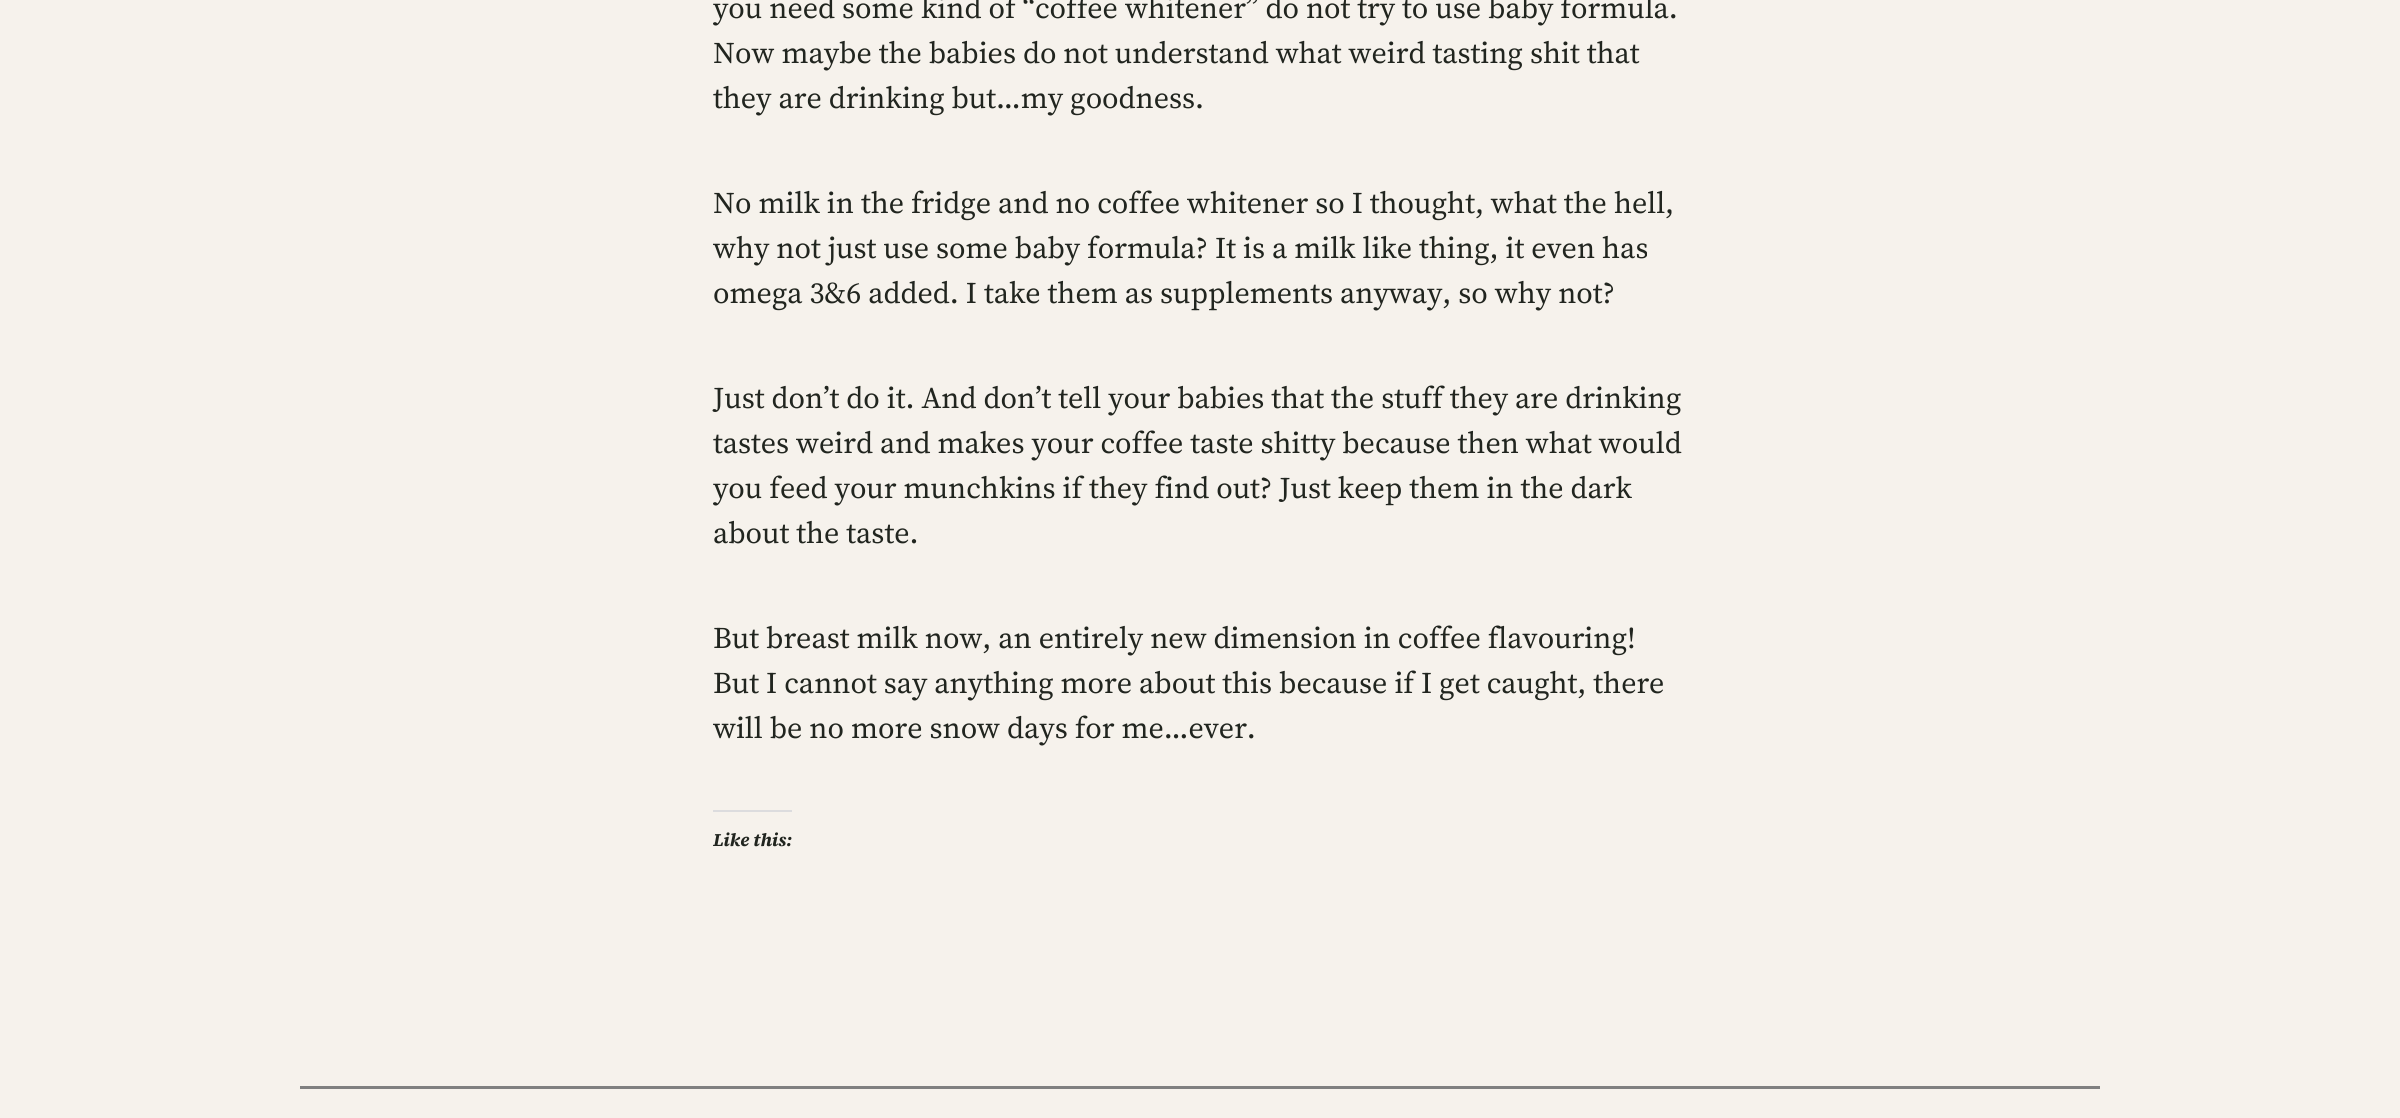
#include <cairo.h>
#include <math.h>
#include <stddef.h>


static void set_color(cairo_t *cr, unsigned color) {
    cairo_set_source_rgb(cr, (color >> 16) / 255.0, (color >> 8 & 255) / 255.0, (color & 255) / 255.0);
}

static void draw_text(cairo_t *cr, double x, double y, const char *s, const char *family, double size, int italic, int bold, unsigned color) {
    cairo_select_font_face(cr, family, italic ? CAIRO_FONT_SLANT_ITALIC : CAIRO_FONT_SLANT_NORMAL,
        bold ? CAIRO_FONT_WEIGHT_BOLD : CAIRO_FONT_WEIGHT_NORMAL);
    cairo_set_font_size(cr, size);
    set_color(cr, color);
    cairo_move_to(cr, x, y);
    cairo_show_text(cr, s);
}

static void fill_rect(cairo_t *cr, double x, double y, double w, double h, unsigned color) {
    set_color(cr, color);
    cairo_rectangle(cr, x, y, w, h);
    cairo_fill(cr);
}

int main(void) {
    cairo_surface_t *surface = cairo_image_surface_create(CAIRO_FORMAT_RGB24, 2400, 1118);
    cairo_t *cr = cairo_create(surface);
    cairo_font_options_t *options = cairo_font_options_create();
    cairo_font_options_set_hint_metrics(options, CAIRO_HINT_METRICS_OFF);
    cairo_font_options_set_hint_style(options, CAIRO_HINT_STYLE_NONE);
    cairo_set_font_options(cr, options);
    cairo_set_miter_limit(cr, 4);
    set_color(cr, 0xF6F2EC);
    cairo_paint(cr);
    draw_text(cr, 713, 18, "you need some kind of “coffee whitener” do not try to use baby formula.", "Source Serif 4", 30, 0, 0, 0x21251F);
    draw_text(cr, 713, 63, "Now maybe the babies do not understand what weird tasting shit that", "Source Serif 4", 30, 0, 0, 0x21251F);
    draw_text(cr, 713, 108, "they are drinking but…my goodness.", "Source Serif 4", 30, 0, 0, 0x21251F);
    draw_text(cr, 713, 213, "No milk in the fridge and no coffee whitener so I thought, what the hell,", "Source Serif 4", 30, 0, 0, 0x21251F);
    draw_text(cr, 713, 258, "why not just use some baby formula? It is a milk like thing, it even has", "Source Serif 4", 30, 0, 0, 0x21251F);
    draw_text(cr, 713, 303, "omega 3&6 added. I take them as supplements anyway, so why not?", "Source Serif 4", 30, 0, 0, 0x21251F);
    draw_text(cr, 713, 408, "Just don’t do it. And don’t tell your babies that the stuff they are drinking", "Source Serif 4", 30, 0, 0, 0x21251F);
    draw_text(cr, 713, 453, "tastes weird and makes your coffee taste shitty because then what would", "Source Serif 4", 30, 0, 0, 0x21251F);
    draw_text(cr, 713, 498, "you feed your munchkins if they find out? Just keep them in the dark", "Source Serif 4", 30, 0, 0, 0x21251F);
    draw_text(cr, 713, 543, "about the taste.", "Source Serif 4", 30, 0, 0, 0x21251F);
    draw_text(cr, 713, 648, "But breast milk now, an entirely new dimension in coffee flavouring!", "Source Serif 4", 30, 0, 0, 0x21251F);
    draw_text(cr, 713, 693, "But I cannot say anything more about this because if I get caught, there", "Source Serif 4", 30, 0, 0, 0x21251F);
    draw_text(cr, 713, 738, "will be no more snow days for me…ever.", "Source Serif 4", 30, 0, 0, 0x21251F);
    fill_rect(cr, 713, 810, 79, 2, 0xDCDCDE);
    draw_text(cr, 713, 846, "Like this:", "Source Serif 4", 18, 1, 1, 0x21251F);
    fill_rect(cr, 300, 1086, 1800, 3, 0x808080);
    cairo_surface_write_to_png(surface, "output.png");
    cairo_font_options_destroy(options);
    cairo_destroy(cr);
    cairo_surface_destroy(surface);
    return 0;
}
